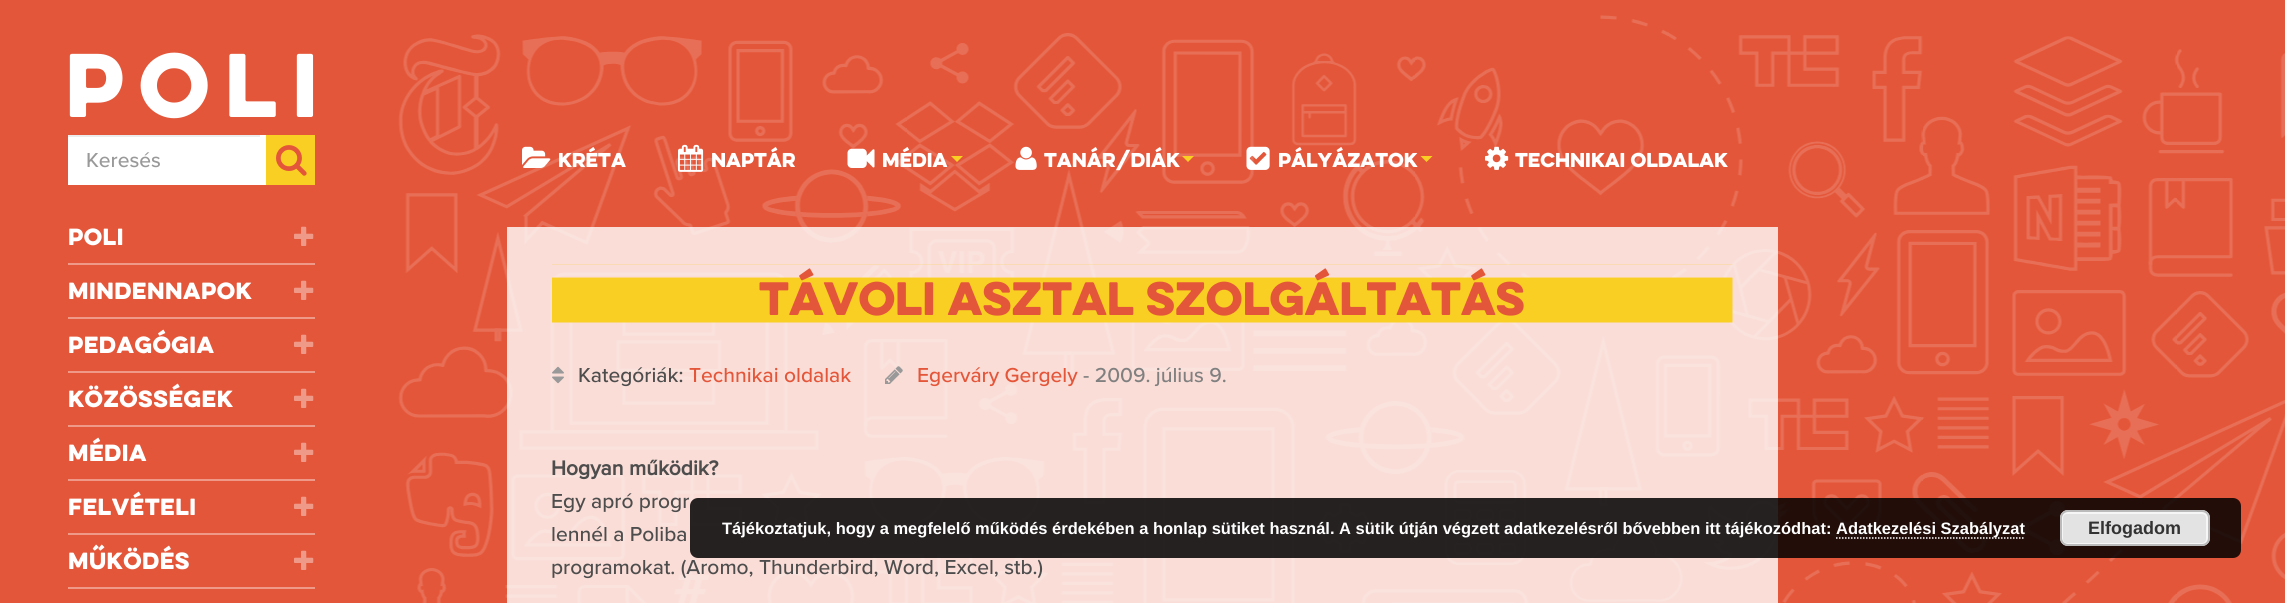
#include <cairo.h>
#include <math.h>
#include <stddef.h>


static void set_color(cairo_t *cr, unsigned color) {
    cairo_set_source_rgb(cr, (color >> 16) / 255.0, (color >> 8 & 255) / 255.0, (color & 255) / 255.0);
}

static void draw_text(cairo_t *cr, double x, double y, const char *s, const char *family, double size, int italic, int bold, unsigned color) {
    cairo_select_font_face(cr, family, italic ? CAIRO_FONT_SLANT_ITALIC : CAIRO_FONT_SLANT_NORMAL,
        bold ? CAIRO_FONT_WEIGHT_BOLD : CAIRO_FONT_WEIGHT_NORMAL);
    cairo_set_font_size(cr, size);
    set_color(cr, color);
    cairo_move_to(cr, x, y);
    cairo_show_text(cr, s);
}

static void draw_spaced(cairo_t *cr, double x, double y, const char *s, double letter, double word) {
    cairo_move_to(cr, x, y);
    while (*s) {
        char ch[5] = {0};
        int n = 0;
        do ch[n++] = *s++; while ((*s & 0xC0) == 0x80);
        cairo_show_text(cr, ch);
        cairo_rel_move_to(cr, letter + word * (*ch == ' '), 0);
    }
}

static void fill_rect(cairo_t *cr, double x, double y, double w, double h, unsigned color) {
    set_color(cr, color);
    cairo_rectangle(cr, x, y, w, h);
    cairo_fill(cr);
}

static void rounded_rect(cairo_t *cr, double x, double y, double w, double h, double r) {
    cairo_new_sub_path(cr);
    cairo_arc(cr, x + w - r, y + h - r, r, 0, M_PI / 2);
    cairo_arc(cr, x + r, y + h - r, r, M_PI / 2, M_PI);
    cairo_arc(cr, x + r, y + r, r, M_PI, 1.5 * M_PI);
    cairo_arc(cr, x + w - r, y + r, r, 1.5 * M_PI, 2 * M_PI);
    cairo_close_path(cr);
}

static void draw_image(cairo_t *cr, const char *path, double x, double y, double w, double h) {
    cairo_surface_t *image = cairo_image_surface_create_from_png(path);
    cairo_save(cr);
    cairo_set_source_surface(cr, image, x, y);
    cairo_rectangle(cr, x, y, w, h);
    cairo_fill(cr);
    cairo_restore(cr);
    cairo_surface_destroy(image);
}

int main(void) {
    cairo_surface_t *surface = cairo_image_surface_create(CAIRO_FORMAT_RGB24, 2285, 603);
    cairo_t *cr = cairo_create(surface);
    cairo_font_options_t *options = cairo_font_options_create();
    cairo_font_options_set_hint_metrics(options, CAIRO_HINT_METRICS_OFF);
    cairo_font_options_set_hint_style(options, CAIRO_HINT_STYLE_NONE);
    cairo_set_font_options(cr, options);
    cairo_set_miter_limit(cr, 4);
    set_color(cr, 0xE45639);
    cairo_paint(cr);
    draw_image(cr, "assets/img1.png", 398, 15, 1887, 588);
    cairo_select_font_face(cr, "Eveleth", CAIRO_FONT_SLANT_NORMAL, CAIRO_FONT_WEIGHT_NORMAL);
    cairo_set_font_size(cr, 81);
    set_color(cr, 0xFFFFFF);
    draw_spaced(cr, 65, 117, "Poli", 15, 0);
    fill_rect(cr, 68, 135, 198, 50, 0xFFFFFF);
    fill_rect(cr, 68, 135, 192, 2, 0xECECEC);
    draw_text(cr, 86, 167, "Keresés", "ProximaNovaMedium", 21, 0, 0, 0x999999);
    fill_rect(cr, 266, 135, 49, 50, 0xF8CF22);
    draw_image(cr, "assets/img2.png", 276, 145, 31, 31);
    draw_image(cr, "assets/img3.png", 522, 146, 29, 22);
    draw_text(cr, 558, 167, "KRÉTA", "Eveleth", 18, 0, 0, 0xFFFFFF);
    draw_image(cr, "assets/img4.png", 678, 144, 26, 28);
    draw_text(cr, 711, 167, "Naptár", "Eveleth", 18, 0, 0, 0xFFFFFF);
    draw_image(cr, "assets/img5.png", 847, 148, 28, 20);
    draw_text(cr, 882, 167, "Média", "Eveleth", 18, 0, 0, 0xFFFFFF);
    set_color(cr, 0xF8CF22);
    cairo_new_path(cr);
    cairo_move_to(cr, 951, 156);
    cairo_line_to(cr, 963, 156);
    cairo_line_to(cr, 957, 162);
    cairo_close_path(cr);
    cairo_fill(cr);
    draw_image(cr, "assets/img6.png", 1015, 146, 22, 24);
    draw_text(cr, 1044, 167, "Tanár/Diák", "Eveleth", 18, 0, 0, 0xFFFFFF);
    set_color(cr, 0xF8CF22);
    cairo_new_path(cr);
    cairo_move_to(cr, 1182, 156);
    cairo_line_to(cr, 1194, 156);
    cairo_line_to(cr, 1188, 162);
    cairo_close_path(cr);
    cairo_fill(cr);
    draw_image(cr, "assets/img7.png", 1246, 146, 24, 24);
    draw_text(cr, 1278, 167, "Pályázatok", "Eveleth", 18, 0, 0, 0xFFFFFF);
    set_color(cr, 0xF8CF22);
    cairo_new_path(cr);
    cairo_move_to(cr, 1420.5, 156);
    cairo_line_to(cr, 1432.5, 156);
    cairo_line_to(cr, 1426.5, 162);
    cairo_close_path(cr);
    cairo_fill(cr);
    draw_image(cr, "assets/img8.png", 1485, 146, 24, 24);
    draw_text(cr, 1515, 167, "Technikai oldalak", "Eveleth", 18, 0, 0, 0xFFFFFF);
    cairo_set_source_rgba(cr, 1, 1, 1, 0.8);
    cairo_rectangle(cr, 507, 227, 1271, 376);
    cairo_fill(cr);
    draw_image(cr, "assets/img9.png", 552, 264, 1181, 59);
    draw_text(cr, 759, 315, "Távoli asztal szolgáltatás", "Eveleth", 42, 0, 0, 0xE45639);
    draw_image(cr, "assets/img10.png", 552, 366, 12, 18);
    draw_text(cr, 578, 382, "Kategóriák:", "ProximaNovaMedium", 21, 0, 0, 0x4D4D4D);
    draw_text(cr, 689, 382, "Technikai oldalak", "ProximaNovaMedium", 21, 0, 0, 0xE45639);
    draw_image(cr, "assets/img11.png", 885, 366, 18, 18);
    draw_text(cr, 917, 382, "Egerváry Gergely", "ProximaNovaMedium", 21, 0, 0, 0xE45639);
    draw_text(cr, 1083, 382, "- 2009. július 9.", "ProximaNovaMedium", 21, 0, 0, 0x808080);
    draw_text(cr, 551, 475, "Hogyan működik?", "ProximaNovaMedium", 21, 0, 1, 0x4D4D4D);
    draw_text(cr, 551, 508, "Egy apró progr", "ProximaNovaMedium", 21, 0, 0, 0x4D4D4D);
    draw_text(cr, 551, 541, "lennél a Poliba", "ProximaNovaMedium", 21, 0, 0, 0x4D4D4D);
    draw_text(cr, 551, 574, "programokat. (Aromo, Thunderbird, Word, Excel, stb.)", "ProximaNovaMedium", 21, 0, 0, 0x4D4D4D);
    fill_rect(cr, 68, 263, 247, 2, 0xEF9A88);
    cairo_select_font_face(cr, "Eveleth", CAIRO_FONT_SLANT_NORMAL, CAIRO_FONT_WEIGHT_NORMAL);
    set_color(cr, 0xFFFFFF);
    draw_spaced(cr, 68, 245, "Poli", 0.5, 0);
    draw_image(cr, "assets/img12.png", 294, 226, 20, 20);
    fill_rect(cr, 68, 317, 247, 2, 0xEF9A88);
    set_color(cr, 0xFFFFFF);
    draw_spaced(cr, 68, 299, "Mindennapok", 0.5, 0);
    draw_image(cr, "assets/img12.png", 294, 280, 20, 20);
    fill_rect(cr, 68, 371, 247, 2, 0xEF9A88);
    set_color(cr, 0xFFFFFF);
    draw_spaced(cr, 68, 353, "Pedagógia", 0.5, 0);
    draw_image(cr, "assets/img12.png", 294, 334, 20, 20);
    fill_rect(cr, 68, 425, 247, 2, 0xEF9A88);
    set_color(cr, 0xFFFFFF);
    draw_spaced(cr, 68, 407, "Közösségek", 0.5, 0);
    draw_image(cr, "assets/img12.png", 294, 388, 20, 20);
    fill_rect(cr, 68, 479, 247, 2, 0xEF9A88);
    set_color(cr, 0xFFFFFF);
    draw_spaced(cr, 68, 461, "Média", 0.5, 0);
    draw_image(cr, "assets/img12.png", 294, 442, 20, 20);
    fill_rect(cr, 68, 533, 247, 2, 0xEF9A88);
    set_color(cr, 0xFFFFFF);
    draw_spaced(cr, 68, 515, "Felvételi", 0.5, 0);
    draw_image(cr, "assets/img12.png", 294, 496, 20, 20);
    fill_rect(cr, 68, 587, 247, 2, 0xEF9A88);
    set_color(cr, 0xFFFFFF);
    draw_spaced(cr, 68, 569, "Működés", 0.5, 0);
    draw_image(cr, "assets/img12.png", 294, 550, 20, 20);
    cairo_set_source_rgba(cr, 0, 0, 0, 0.85);
    rounded_rect(cr, 690, 498, 1551, 60, 8);
    cairo_fill(cr);
    draw_text(cr, 722, 534, "Tájékoztatjuk, hogy a megfelelő működés érdekében a honlap sütiket használ. A sütik útján végzett adatkezelésről bővebben itt tájékozódhat:", "Liberation Sans", 16.5, 0, 1, 0xFFFFFF);
    cairo_new_path(cr);
    cairo_move_to(cr, 1836, 538);
    cairo_line_to(cr, 2025, 538);
    cairo_set_line_width(cr, 1.5);
    cairo_set_dash(cr, (double[]){1.5, 1.5}, 2, 0);
    cairo_stroke(cr);
    draw_text(cr, 1836, 534, "Adatkezelési Szabályzat", "Liberation Sans", 16.5, 0, 1, 0xFFFFFF);
    set_color(cr, 0xE3E3E3);
    rounded_rect(cr, 2060, 510, 150, 36, 8);
    cairo_fill(cr);
    rounded_rect(cr, 2062, 513, 145, 31, 5);
    set_color(cr, 0xF6F6F6);
    cairo_set_line_width(cr, 2);
    cairo_set_dash(cr, NULL, 0, 0);
    cairo_stroke(cr);
    rounded_rect(cr, 2061, 511, 148, 34, 7);
    set_color(cr, 0xBBBBBB);
    cairo_stroke(cr);
    draw_text(cr, 2088, 534, "Elfogadom", "Liberation Sans", 18, 0, 1, 0x333333);
    cairo_surface_write_to_png(surface, "output.png");
    cairo_font_options_destroy(options);
    cairo_destroy(cr);
    cairo_surface_destroy(surface);
    return 0;
}
